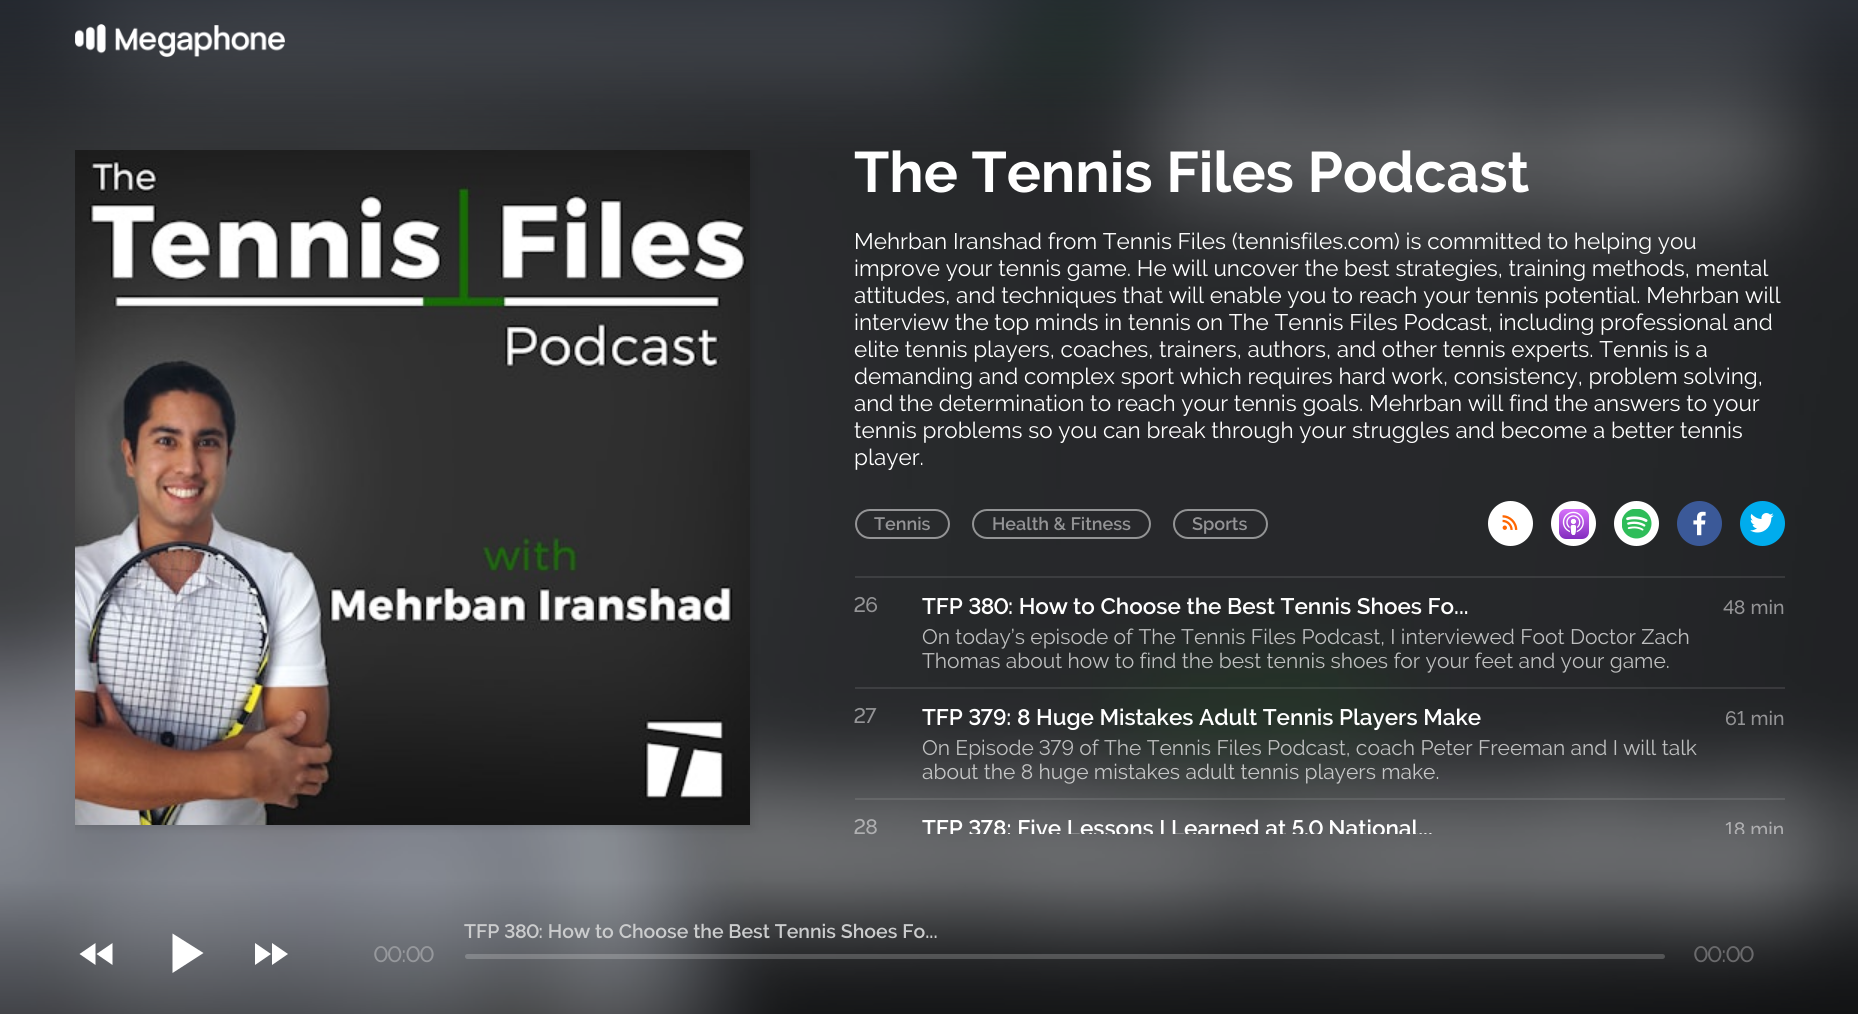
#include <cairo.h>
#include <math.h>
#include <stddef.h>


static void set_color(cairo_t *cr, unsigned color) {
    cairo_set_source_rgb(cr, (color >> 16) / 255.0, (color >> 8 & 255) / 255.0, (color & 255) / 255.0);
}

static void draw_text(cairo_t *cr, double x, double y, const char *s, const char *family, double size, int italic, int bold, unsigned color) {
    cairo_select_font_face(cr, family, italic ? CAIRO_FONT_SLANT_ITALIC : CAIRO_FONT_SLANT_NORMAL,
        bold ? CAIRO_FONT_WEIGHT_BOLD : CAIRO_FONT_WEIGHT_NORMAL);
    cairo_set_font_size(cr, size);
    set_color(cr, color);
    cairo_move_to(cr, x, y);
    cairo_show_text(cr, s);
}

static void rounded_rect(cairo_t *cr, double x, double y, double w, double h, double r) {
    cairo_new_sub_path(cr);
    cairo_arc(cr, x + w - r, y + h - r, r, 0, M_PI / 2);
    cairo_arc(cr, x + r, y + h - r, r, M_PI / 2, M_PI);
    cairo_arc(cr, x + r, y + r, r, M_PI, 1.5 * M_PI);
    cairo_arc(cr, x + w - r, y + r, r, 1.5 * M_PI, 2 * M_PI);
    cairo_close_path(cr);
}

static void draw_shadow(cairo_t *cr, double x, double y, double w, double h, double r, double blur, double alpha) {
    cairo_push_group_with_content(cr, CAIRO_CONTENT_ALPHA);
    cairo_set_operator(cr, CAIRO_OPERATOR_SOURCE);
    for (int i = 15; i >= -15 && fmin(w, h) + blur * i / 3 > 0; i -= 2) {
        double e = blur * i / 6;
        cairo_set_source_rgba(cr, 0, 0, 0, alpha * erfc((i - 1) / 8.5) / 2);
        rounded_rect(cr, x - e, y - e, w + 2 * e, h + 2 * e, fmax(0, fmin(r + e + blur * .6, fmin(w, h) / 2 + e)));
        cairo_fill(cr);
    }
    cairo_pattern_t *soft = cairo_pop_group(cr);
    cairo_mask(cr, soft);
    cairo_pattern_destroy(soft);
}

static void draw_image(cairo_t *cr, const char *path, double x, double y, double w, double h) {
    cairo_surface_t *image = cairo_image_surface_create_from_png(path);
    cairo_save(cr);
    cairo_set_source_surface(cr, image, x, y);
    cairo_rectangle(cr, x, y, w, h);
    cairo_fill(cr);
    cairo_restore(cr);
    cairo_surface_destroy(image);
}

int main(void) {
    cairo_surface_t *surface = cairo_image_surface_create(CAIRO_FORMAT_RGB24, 1858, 1014);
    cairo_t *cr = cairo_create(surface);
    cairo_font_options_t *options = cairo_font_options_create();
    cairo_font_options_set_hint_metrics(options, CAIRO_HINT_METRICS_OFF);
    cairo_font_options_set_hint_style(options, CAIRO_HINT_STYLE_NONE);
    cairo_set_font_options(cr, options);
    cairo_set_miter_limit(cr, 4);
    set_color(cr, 0xFFFFFF);
    cairo_paint(cr);
    draw_image(cr, "assets/img1.png", 0, 0, 1858, 1014);
    draw_image(cr, "assets/img2.png", 75, 24, 210, 33);
    cairo_save(cr);
    cairo_rectangle(cr, 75, 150, 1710, 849);
    cairo_clip(cr);
    set_color(cr, 0x000000);
    draw_shadow(cr, 72, 147, 681, 681, 0, 4, 0.1);
    cairo_restore(cr);
    draw_image(cr, "assets/img3.png", 75, 150, 675, 675);
    draw_text(cr, 854, 192, "The Tennis Files Podcast", "Raleway", 57, 0, 1, 0xFFFFFF);
    draw_text(cr, 854, 249, "Mehrban Iranshad from Tennis Files (tennisfiles.com) is committed to helping you", "Raleway", 22.5, 0, 0, 0xFFFFFF);
    draw_text(cr, 854, 276, "improve your tennis game. He will uncover the best strategies, training methods, mental", "Raleway", 22.5, 0, 0, 0xFFFFFF);
    draw_text(cr, 854, 303, "attitudes, and techniques that will enable you to reach your tennis potential. Mehrban will", "Raleway", 22.5, 0, 0, 0xFFFFFF);
    draw_text(cr, 854, 330, "interview the top minds in tennis on The Tennis Files Podcast, including professional and", "Raleway", 22.5, 0, 0, 0xFFFFFF);
    draw_text(cr, 854, 357, "elite tennis players, coaches, trainers, authors, and other tennis experts. Tennis is a", "Raleway", 22.5, 0, 0, 0xFFFFFF);
    draw_text(cr, 854, 384, "demanding and complex sport which requires hard work, consistency, problem solving,", "Raleway", 22.5, 0, 0, 0xFFFFFF);
    draw_text(cr, 854, 411, "and the determination to reach your tennis goals. Mehrban will find the answers to your", "Raleway", 22.5, 0, 0, 0xFFFFFF);
    draw_text(cr, 854, 438, "tennis problems so you can break through your struggles and become a better tennis", "Raleway", 22.5, 0, 0, 0xFFFFFF);
    draw_text(cr, 854, 465, "player.", "Raleway", 22.5, 0, 0, 0xFFFFFF);
    rounded_rect(cr, 856, 510, 93, 28, 14);
    set_color(cr, 0x949496);
    cairo_stroke(cr);
    draw_text(cr, 874, 530, "Tennis", "Raleway SemiBold", 18, 0, 0, 0x949496);
    rounded_rect(cr, 973, 510, 177, 28, 14);
    set_color(cr, 0x939495);
    cairo_stroke(cr);
    draw_text(cr, 992, 530, "Health & Fitness", "Raleway SemiBold", 18, 0, 0, 0x949496);
    rounded_rect(cr, 1174, 510, 93, 28, 14);
    set_color(cr, 0x939495);
    cairo_stroke(cr);
    draw_text(cr, 1192, 530, "Sports", "Raleway SemiBold", 18, 0, 0, 0x949496);
    set_color(cr, 0xFFFFFF);
    cairo_new_path(cr);
    cairo_arc(cr, 1510.5, 523.5, 22.5, 0, 2 * M_PI);
    cairo_fill(cr);
    draw_image(cr, "assets/img4.png", 1502, 515, 16, 15);
    cairo_arc(cr, 1573.5, 523.5, 22.5, 0, 2 * M_PI);
    cairo_fill(cr);
    draw_image(cr, "assets/img5.png", 1559, 509, 30, 30);
    cairo_arc(cr, 1636.5, 523.5, 22.5, 0, 2 * M_PI);
    cairo_fill(cr);
    draw_image(cr, "assets/img6.png", 1622, 509, 30, 30);
    set_color(cr, 0x3B5998);
    cairo_arc(cr, 1699.5, 523.5, 22.5, 0, 2 * M_PI);
    cairo_fill(cr);
    draw_image(cr, "assets/img7.png", 1693, 511, 13, 25);
    set_color(cr, 0x00ACED);
    cairo_arc(cr, 1762.5, 523.5, 22.5, 0, 2 * M_PI);
    cairo_fill(cr);
    draw_image(cr, "assets/img8.png", 1750, 513, 24, 20);
    cairo_set_source_rgba(cr, 1, 1, 1, 0.1);
    cairo_rectangle(cr, 855, 576, 930, 2);
    cairo_fill(cr);
    draw_text(cr, 854, 612, "26", "Raleway Medium", 21, 0, 0, 0x949496);
    draw_text(cr, 922, 614, "TFP 380: How to Choose the Best Tennis Shoes Fo...", "Raleway SemiBold", 22.5, 0, 0, 0xFFFFFF);
    draw_text(cr, 922, 644, "On today’s episode of The Tennis Files Podcast, I interviewed Foot Doctor Zach", "Raleway", 21, 0, 0, 0xBEBFBF);
    draw_text(cr, 922, 668, "Thomas about how to find the best tennis shoes for your feet and your game.", "Raleway", 21, 0, 0, 0xBEBFBF);
    draw_text(cr, 1723, 614, "48 min", "Raleway Medium", 19.5, 0, 0, 0x949496);
    cairo_set_source_rgba(cr, 1, 1, 1, 0.1);
    cairo_rectangle(cr, 855, 687, 930, 2);
    cairo_fill(cr);
    draw_text(cr, 854, 723, "27", "Raleway Medium", 21, 0, 0, 0x949496);
    draw_text(cr, 922, 725, "TFP 379: 8 Huge Mistakes Adult Tennis Players Make", "Raleway SemiBold", 22.5, 0, 0, 0xFFFFFF);
    draw_text(cr, 922, 755, "On Episode 379 of The Tennis Files Podcast, coach Peter Freeman and I will talk", "Raleway", 21, 0, 0, 0xBEBFBF);
    draw_text(cr, 922, 779, "about the 8 huge mistakes adult tennis players make.", "Raleway", 21, 0, 0, 0xC6C7C7);
    draw_text(cr, 1725, 725, "61 min", "Raleway Medium", 19.5, 0, 0, 0x949496);
    cairo_set_source_rgba(cr, 1, 1, 1, 0.1);
    cairo_rectangle(cr, 855, 798, 930, 2);
    cairo_fill(cr);
    draw_text(cr, 854, 834, "28", "Raleway Medium", 21, 0, 0, 0xAFAFB1);
    cairo_save(cr);
    cairo_rectangle(cr, 750, 150, 1035, 684);
    cairo_clip(cr);
    draw_text(cr, 922, 836, "TFP 378: Five Lessons I Learned at 5.0 National...", "Raleway SemiBold", 22.5, 0, 0, 0xFFFFFF);
    draw_text(cr, 1725, 836, "18 min", "Raleway Medium", 19.5, 0, 0, 0xAFAFB1);
    cairo_restore(cr);
    draw_text(cr, 464, 938, "TFP 380: How to Choose the Best Tennis Shoes Fo...", "Raleway SemiBold", 19.5, 0, 0, 0xCBCCCD);
    cairo_set_source_rgba(cr, 1, 1, 1, 0.2);
    rounded_rect(cr, 465, 954, 1200, 5, 2.5);
    cairo_fill(cr);
    set_color(cr, 0xFFFFFF);
    cairo_new_path(cr);
    cairo_move_to(cr, 96.5, 954);
    cairo_line_to(cr, 112.5, 943);
    cairo_line_to(cr, 112.5, 965);
    cairo_close_path(cr);
    cairo_move_to(cr, 95.5, 965);
    cairo_line_to(cr, 79.5, 954);
    cairo_line_to(cr, 95.5, 943);
    cairo_close_path(cr);
    cairo_fill(cr);
    cairo_new_path(cr);
    cairo_move_to(cr, 172.5, 933.5);
    cairo_line_to(cr, 203.5, 953);
    cairo_line_to(cr, 172.5, 973);
    cairo_close_path(cr);
    cairo_fill(cr);
    cairo_new_path(cr);
    cairo_move_to(cr, 272, 943);
    cairo_line_to(cr, 288, 954);
    cairo_line_to(cr, 272, 965);
    cairo_close_path(cr);
    cairo_move_to(cr, 255, 965);
    cairo_line_to(cr, 255, 943);
    cairo_line_to(cr, 271, 954);
    cairo_close_path(cr);
    cairo_fill(cr);
    draw_text(cr, 374, 962, "00:00", "Raleway Medium", 22.5, 0, 0, 0x96989C);
    draw_text(cr, 1694, 962, "00:00", "Raleway Medium", 22.5, 0, 0, 0x6A6A6C);
    cairo_surface_write_to_png(surface, "output.png");
    cairo_font_options_destroy(options);
    cairo_destroy(cr);
    cairo_surface_destroy(surface);
    return 0;
}
